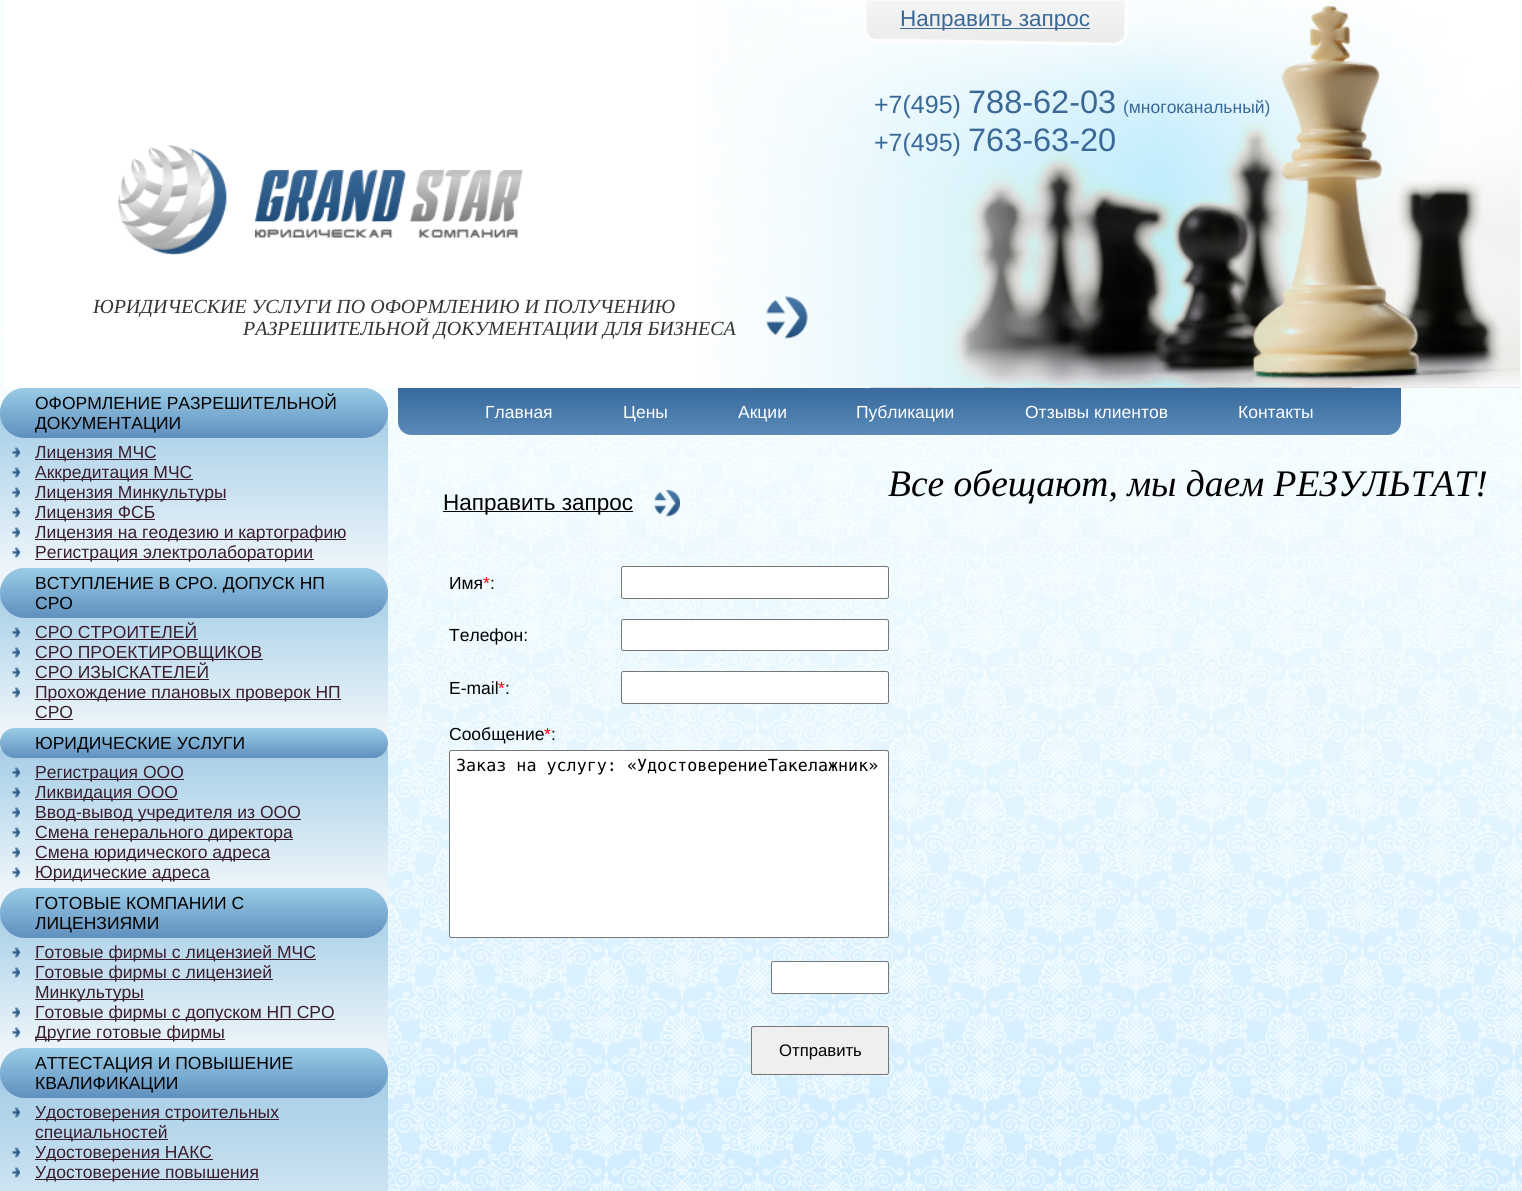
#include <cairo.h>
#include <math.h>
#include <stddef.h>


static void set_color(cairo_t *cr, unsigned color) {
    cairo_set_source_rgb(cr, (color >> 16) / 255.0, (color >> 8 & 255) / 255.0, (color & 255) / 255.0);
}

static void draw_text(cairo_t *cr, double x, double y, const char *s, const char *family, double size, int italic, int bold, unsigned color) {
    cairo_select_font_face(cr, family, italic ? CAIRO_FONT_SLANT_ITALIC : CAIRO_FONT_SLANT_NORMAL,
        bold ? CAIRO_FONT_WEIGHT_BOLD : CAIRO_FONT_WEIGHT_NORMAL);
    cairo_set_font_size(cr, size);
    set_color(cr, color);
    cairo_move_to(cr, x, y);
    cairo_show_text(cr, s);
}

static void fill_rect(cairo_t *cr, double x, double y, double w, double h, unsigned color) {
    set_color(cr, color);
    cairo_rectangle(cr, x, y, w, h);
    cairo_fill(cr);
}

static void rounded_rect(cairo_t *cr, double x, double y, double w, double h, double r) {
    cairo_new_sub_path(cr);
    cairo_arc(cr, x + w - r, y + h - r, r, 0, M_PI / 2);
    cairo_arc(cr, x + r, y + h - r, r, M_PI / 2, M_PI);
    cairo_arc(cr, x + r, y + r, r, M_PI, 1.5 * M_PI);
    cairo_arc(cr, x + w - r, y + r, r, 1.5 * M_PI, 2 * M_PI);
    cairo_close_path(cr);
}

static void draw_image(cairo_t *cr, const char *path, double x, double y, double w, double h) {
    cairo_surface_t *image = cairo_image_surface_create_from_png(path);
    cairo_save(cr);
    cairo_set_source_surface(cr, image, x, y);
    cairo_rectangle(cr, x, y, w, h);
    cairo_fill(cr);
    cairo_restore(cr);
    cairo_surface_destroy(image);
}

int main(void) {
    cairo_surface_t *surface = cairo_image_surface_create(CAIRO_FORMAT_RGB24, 1522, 1191);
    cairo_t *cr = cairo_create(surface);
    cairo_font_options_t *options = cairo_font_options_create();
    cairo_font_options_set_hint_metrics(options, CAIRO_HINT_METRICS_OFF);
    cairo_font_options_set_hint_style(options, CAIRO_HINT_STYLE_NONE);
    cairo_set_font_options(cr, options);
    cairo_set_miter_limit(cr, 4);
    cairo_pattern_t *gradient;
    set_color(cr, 0xFFFFFF);
    cairo_paint(cr);
    draw_image(cr, "assets/img1.png", 0, 0, 1522, 1191);
    fill_rect(cr, 3, 0, 1517, 388, 0xFFFFFF);
    draw_image(cr, "assets/img2.png", 703, 0, 817, 388);
    draw_image(cr, "assets/img4.png", 832, 37, 688, 351);
    draw_image(cr, "assets/img3.png", 870, 0, 650, 388);
    draw_image(cr, "assets/img5.png", 864, 0, 264, 46);
    fill_rect(cr, 900, 28, 190, 1, 0x3A6997);
    draw_text(cr, 900, 26, "Направить запрос", "Liberation Sans", 22.5, 0, 0, 0x3A6997);
    draw_text(cr, 874, 113, "+7(495)", "Liberation Sans", 25, 0, 0, 0x3A6997);
    draw_text(cr, 968, 113, "788-62-03", "Liberation Sans", 32.5, 0, 0, 0x3A6997);
    draw_text(cr, 1123, 113, "(многоканальный)", "Liberation Sans", 17.5, 0, 0, 0x3A6997);
    draw_text(cr, 874, 151, "+7(495)", "Liberation Sans", 25, 0, 0, 0x3A6997);
    draw_text(cr, 968, 151, "763-63-20", "Liberation Sans", 32.5, 0, 0, 0x3A6997);
    draw_image(cr, "assets/img6.png", 117, 145, 406, 110);
    draw_image(cr, "assets/img7.png", 766, 296, 42, 43);
    draw_text(cr, 93, 313, "ЮРИДИЧЕСКИЕ УСЛУГИ ПО ОФОРМЛЕНИЮ И ПОЛУЧЕНИЮ", "Liberation Serif", 20, 1, 0, 0x343434);
    draw_text(cr, 243, 335, "РАЗРЕШИТЕЛЬНОЙ ДОКУМЕНТАЦИИ ДЛЯ БИЗНЕСА", "Liberation Serif", 20, 1, 0, 0x343434);
    set_color(cr, 0xEDF5FA);
    rounded_rect(cr, 0, 388, 388, 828, 25);
    cairo_fill(cr);
    gradient = cairo_pattern_create_linear(194, 388, 194, 568);
    cairo_pattern_add_color_stop_rgba(gradient, 0, 0.608, 0.784, 0.894, 1);
    cairo_pattern_add_color_stop_rgba(gradient, 1, 0.929, 0.961, 0.98, 1);
    cairo_set_source(cr, gradient);
    cairo_pattern_destroy(gradient);
    cairo_new_path(cr);
    cairo_move_to(cr, 25, 388);
    cairo_line_to(cr, 363, 388);
    cairo_curve_to(cr, 377, 388, 388, 399, 388, 413);
    cairo_line_to(cr, 388, 568);
    cairo_line_to(cr, 0, 568);
    cairo_line_to(cr, 0, 413);
    cairo_curve_to(cr, 0, 399, 11, 388, 25, 388);
    cairo_close_path(cr);
    cairo_fill(cr);
    gradient = cairo_pattern_create_linear(194, 388, 194, 438);
    cairo_pattern_add_color_stop_rgba(gradient, 0, 0.604, 0.8, 0.906, 1);
    cairo_pattern_add_color_stop_rgba(gradient, 1, 0.373, 0.561, 0.741, 1);
    cairo_set_source(cr, gradient);
    cairo_pattern_destroy(gradient);
    rounded_rect(cr, 0, 388, 388, 50, 25);
    cairo_fill(cr);
    draw_text(cr, 35, 409, "ОФОРМЛЕНИЕ РАЗРЕШИТЕЛЬНОЙ", "Liberation Sans", 17.5, 0, 0, 0x000000);
    draw_text(cr, 35, 429, "ДОКУМЕНТАЦИИ", "Liberation Sans", 17.5, 0, 0, 0x000000);
    draw_image(cr, "assets/img8.png", 12, 447, 8, 11);
    fill_rect(cr, 35, 459, 121, 1, 0x391E2E);
    draw_text(cr, 35, 458, "Лицензия МЧС", "Liberation Sans", 17.5, 0, 0, 0x391E2E);
    draw_image(cr, "assets/img9.png", 12, 467, 8, 11);
    fill_rect(cr, 35, 479, 158, 1, 0x391E2E);
    draw_text(cr, 35, 478, "Аккредитация МЧС", "Liberation Sans", 17.5, 0, 0, 0x391E2E);
    draw_image(cr, "assets/img10.png", 12, 487, 8, 11);
    fill_rect(cr, 35, 499, 191, 1, 0x391E2E);
    draw_text(cr, 35, 498, "Лицензия Минкультуры", "Liberation Sans", 17.5, 0, 0, 0x391E2E);
    draw_image(cr, "assets/img11.png", 12, 507, 8, 11);
    fill_rect(cr, 35, 519, 120, 1, 0x391E2E);
    draw_text(cr, 35, 518, "Лицензия ФСБ", "Liberation Sans", 17.5, 0, 0, 0x391E2E);
    draw_image(cr, "assets/img12.png", 12, 527, 8, 11);
    fill_rect(cr, 35, 539, 311, 1, 0x391E2E);
    draw_text(cr, 35, 538, "Лицензия на геодезию и картографию", "Liberation Sans", 17.5, 0, 0, 0x391E2E);
    draw_image(cr, "assets/img13.png", 12, 547, 8, 11);
    fill_rect(cr, 35, 559, 279, 1, 0x391E2E);
    draw_text(cr, 35, 558, "Регистрация электролаборатории", "Liberation Sans", 17.5, 0, 0, 0x391E2E);
    gradient = cairo_pattern_create_linear(194, 568, 194, 728);
    cairo_pattern_add_color_stop_rgba(gradient, 0, 0.608, 0.784, 0.894, 1);
    cairo_pattern_add_color_stop_rgba(gradient, 1, 0.929, 0.961, 0.98, 1);
    cairo_set_source(cr, gradient);
    cairo_pattern_destroy(gradient);
    cairo_new_path(cr);
    cairo_move_to(cr, 25, 568);
    cairo_line_to(cr, 363, 568);
    cairo_curve_to(cr, 377, 568, 388, 579, 388, 593);
    cairo_line_to(cr, 388, 728);
    cairo_line_to(cr, 0, 728);
    cairo_line_to(cr, 0, 593);
    cairo_curve_to(cr, 0, 579, 11, 568, 25, 568);
    cairo_close_path(cr);
    cairo_fill(cr);
    gradient = cairo_pattern_create_linear(194, 568, 194, 618);
    cairo_pattern_add_color_stop_rgba(gradient, 0, 0.604, 0.8, 0.906, 1);
    cairo_pattern_add_color_stop_rgba(gradient, 1, 0.373, 0.561, 0.741, 1);
    cairo_set_source(cr, gradient);
    cairo_pattern_destroy(gradient);
    rounded_rect(cr, 0, 568, 388, 50, 25);
    cairo_fill(cr);
    draw_text(cr, 35, 589, "ВСТУПЛЕНИЕ В СРО. ДОПУСК НП", "Liberation Sans", 17.5, 0, 0, 0x000000);
    draw_text(cr, 35, 609, "СРО", "Liberation Sans", 17.5, 0, 0, 0x000000);
    draw_image(cr, "assets/img14.png", 12, 627, 8, 11);
    draw_text(cr, 35, 638, "СРО СТРОИТЕЛЕЙ", "Liberation Sans", 17.5, 0, 0, 0x391E2E);
    fill_rect(cr, 35, 639, 163, 1, 0x391E2E);
    draw_image(cr, "assets/img15.png", 12, 647, 8, 11);
    fill_rect(cr, 35, 659, 228, 1, 0x391E2E);
    draw_text(cr, 35, 658, "СРО ПРОЕКТИРОВЩИКОВ", "Liberation Sans", 17.5, 0, 0, 0x391E2E);
    draw_image(cr, "assets/img16.png", 12, 667, 8, 11);
    draw_text(cr, 35, 678, "СРО ИЗЫСКАТЕЛЕЙ", "Liberation Sans", 17.5, 0, 0, 0x391E2E);
    fill_rect(cr, 35, 679, 174, 1, 0x391E2E);
    draw_image(cr, "assets/img17.png", 12, 687, 8, 11);
    fill_rect(cr, 35, 699, 306, 1, 0x391E2E);
    draw_text(cr, 35, 698, "Прохождение плановых проверок НП", "Liberation Sans", 17.5, 0, 0, 0x391E2E);
    draw_text(cr, 35, 718, "СРО", "Liberation Sans", 17.5, 0, 0, 0x391E2E);
    fill_rect(cr, 35, 719, 38, 1, 0x391E2E);
    gradient = cairo_pattern_create_linear(194, 728, 194, 888);
    cairo_pattern_add_color_stop_rgba(gradient, 0, 0.608, 0.784, 0.894, 1);
    cairo_pattern_add_color_stop_rgba(gradient, 1, 0.929, 0.961, 0.98, 1);
    cairo_set_source(cr, gradient);
    cairo_pattern_destroy(gradient);
    cairo_new_path(cr);
    cairo_move_to(cr, 25, 728);
    cairo_line_to(cr, 363, 728);
    cairo_curve_to(cr, 377, 728, 388, 739, 388, 753);
    cairo_line_to(cr, 388, 888);
    cairo_line_to(cr, 0, 888);
    cairo_line_to(cr, 0, 753);
    cairo_curve_to(cr, 0, 739, 11, 728, 25, 728);
    cairo_close_path(cr);
    cairo_fill(cr);
    gradient = cairo_pattern_create_linear(194, 728, 194, 758);
    cairo_pattern_add_color_stop_rgba(gradient, 0, 0.604, 0.8, 0.906, 1);
    cairo_pattern_add_color_stop_rgba(gradient, 1, 0.373, 0.561, 0.741, 1);
    cairo_set_source(cr, gradient);
    cairo_pattern_destroy(gradient);
    rounded_rect(cr, 0, 728, 388, 30, 15);
    cairo_fill(cr);
    draw_text(cr, 35, 749, "ЮРИДИЧЕСКИЕ УСЛУГИ", "Liberation Sans", 17.5, 0, 0, 0x000000);
    draw_image(cr, "assets/img18.png", 12, 767, 8, 11);
    fill_rect(cr, 35, 779, 149, 1, 0x391E2E);
    draw_text(cr, 35, 778, "Регистрация ООО", "Liberation Sans", 17.5, 0, 0, 0x391E2E);
    draw_image(cr, "assets/img14.png", 12, 787, 8, 11);
    fill_rect(cr, 35, 799, 143, 1, 0x391E2E);
    draw_text(cr, 35, 798, "Ликвидация ООО", "Liberation Sans", 17.5, 0, 0, 0x391E2E);
    draw_image(cr, "assets/img15.png", 12, 807, 8, 11);
    fill_rect(cr, 35, 819, 266, 1, 0x391E2E);
    draw_text(cr, 35, 818, "Ввод-вывод учредителя из ООО", "Liberation Sans", 17.5, 0, 0, 0x391E2E);
    draw_image(cr, "assets/img16.png", 12, 827, 8, 11);
    fill_rect(cr, 35, 839, 258, 1, 0x391E2E);
    draw_text(cr, 35, 838, "Смена генерального директора", "Liberation Sans", 17.5, 0, 0, 0x391E2E);
    draw_image(cr, "assets/img17.png", 12, 847, 8, 11);
    fill_rect(cr, 35, 859, 235, 1, 0x391E2E);
    draw_text(cr, 35, 858, "Смена юридического адреса", "Liberation Sans", 17.5, 0, 0, 0x391E2E);
    draw_image(cr, "assets/img19.png", 12, 867, 8, 11);
    fill_rect(cr, 35, 879, 175, 1, 0x391E2E);
    draw_text(cr, 35, 878, "Юридические адреса", "Liberation Sans", 17.5, 0, 0, 0x391E2E);
    gradient = cairo_pattern_create_linear(194, 888, 194, 1048);
    cairo_pattern_add_color_stop_rgba(gradient, 0, 0.608, 0.784, 0.894, 1);
    cairo_pattern_add_color_stop_rgba(gradient, 1, 0.929, 0.961, 0.98, 1);
    cairo_set_source(cr, gradient);
    cairo_pattern_destroy(gradient);
    cairo_new_path(cr);
    cairo_move_to(cr, 25, 888);
    cairo_line_to(cr, 363, 888);
    cairo_curve_to(cr, 377, 888, 388, 899, 388, 913);
    cairo_line_to(cr, 388, 1048);
    cairo_line_to(cr, 0, 1048);
    cairo_line_to(cr, 0, 913);
    cairo_curve_to(cr, 0, 899, 11, 888, 25, 888);
    cairo_close_path(cr);
    cairo_fill(cr);
    gradient = cairo_pattern_create_linear(194, 888, 194, 938);
    cairo_pattern_add_color_stop_rgba(gradient, 0, 0.604, 0.8, 0.906, 1);
    cairo_pattern_add_color_stop_rgba(gradient, 1, 0.373, 0.561, 0.741, 1);
    cairo_set_source(cr, gradient);
    cairo_pattern_destroy(gradient);
    rounded_rect(cr, 0, 888, 388, 50, 25);
    cairo_fill(cr);
    draw_text(cr, 35, 909, "ГОТОВЫЕ КОМПАНИИ С", "Liberation Sans", 17.5, 0, 0, 0x000000);
    draw_text(cr, 35, 929, "ЛИЦЕНЗИЯМИ", "Liberation Sans", 17.5, 0, 0, 0x000000);
    draw_image(cr, "assets/img14.png", 12, 947, 8, 11);
    fill_rect(cr, 35, 959, 281, 1, 0x391E2E);
    draw_text(cr, 35, 958, "Готовые фирмы с лицензией МЧС", "Liberation Sans", 17.5, 0, 0, 0x391E2E);
    draw_image(cr, "assets/img15.png", 12, 967, 8, 11);
    fill_rect(cr, 35, 979, 238, 1, 0x391E2E);
    draw_text(cr, 35, 978, "Готовые фирмы с лицензией", "Liberation Sans", 17.5, 0, 0, 0x391E2E);
    fill_rect(cr, 35, 999, 109, 1, 0x391E2E);
    draw_text(cr, 35, 998, "Минкультуры", "Liberation Sans", 17.5, 0, 0, 0x391E2E);
    draw_image(cr, "assets/img17.png", 12, 1007, 8, 11);
    fill_rect(cr, 35, 1019, 300, 1, 0x391E2E);
    draw_text(cr, 35, 1018, "Готовые фирмы с допуском НП СРО", "Liberation Sans", 17.5, 0, 0, 0x391E2E);
    draw_image(cr, "assets/img19.png", 12, 1027, 8, 11);
    fill_rect(cr, 35, 1039, 190, 1, 0x391E2E);
    draw_text(cr, 35, 1038, "Другие готовые фирмы", "Liberation Sans", 17.5, 0, 0, 0x391E2E);
    gradient = cairo_pattern_create_linear(194, 1048, 194, 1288);
    cairo_pattern_add_color_stop_rgba(gradient, 0, 0.608, 0.784, 0.894, 1);
    cairo_pattern_add_color_stop_rgba(gradient, 1, 0.929, 0.961, 0.98, 1);
    cairo_set_source(cr, gradient);
    cairo_pattern_destroy(gradient);
    cairo_new_path(cr);
    cairo_move_to(cr, 25, 1048);
    cairo_line_to(cr, 363, 1048);
    cairo_curve_to(cr, 377, 1048, 388, 1059, 388, 1073);
    cairo_line_to(cr, 388, 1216);
    cairo_line_to(cr, 0, 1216);
    cairo_line_to(cr, 0, 1073);
    cairo_curve_to(cr, 0, 1059, 11, 1048, 25, 1048);
    cairo_close_path(cr);
    cairo_fill(cr);
    gradient = cairo_pattern_create_linear(194, 1048, 194, 1098);
    cairo_pattern_add_color_stop_rgba(gradient, 0, 0.604, 0.8, 0.906, 1);
    cairo_pattern_add_color_stop_rgba(gradient, 1, 0.373, 0.561, 0.741, 1);
    cairo_set_source(cr, gradient);
    cairo_pattern_destroy(gradient);
    rounded_rect(cr, 0, 1048, 388, 50, 25);
    cairo_fill(cr);
    draw_text(cr, 35, 1069, "АТТЕСТАЦИЯ И ПОВЫШЕНИЕ", "Liberation Sans", 17.5, 0, 0, 0x000000);
    draw_text(cr, 35, 1089, "КВАЛИФИКАЦИИ", "Liberation Sans", 17.5, 0, 0, 0x000000);
    draw_image(cr, "assets/img20.png", 12, 1107, 8, 11);
    fill_rect(cr, 35, 1119, 244, 1, 0x391E2E);
    draw_text(cr, 35, 1118, "Удостоверения строительных", "Liberation Sans", 17.5, 0, 0, 0x391E2E);
    fill_rect(cr, 35, 1139, 133, 1, 0x391E2E);
    draw_text(cr, 35, 1138, "специальностей", "Liberation Sans", 17.5, 0, 0, 0x391E2E);
    draw_image(cr, "assets/img21.png", 12, 1147, 8, 11);
    fill_rect(cr, 35, 1159, 178, 1, 0x391E2E);
    draw_text(cr, 35, 1158, "Удостоверения НАКС", "Liberation Sans", 17.5, 0, 0, 0x391E2E);
    draw_image(cr, "assets/img22.png", 12, 1167, 8, 11);
    fill_rect(cr, 35, 1179, 224, 1, 0x391E2E);
    draw_text(cr, 35, 1178, "Удостоверение повышения", "Liberation Sans", 17.5, 0, 0, 0x391E2E);
    gradient = cairo_pattern_create_linear(899, 387, 899, 435);
    cairo_pattern_add_color_stop_rgba(gradient, 0, 0.216, 0.412, 0.612, 1);
    cairo_pattern_add_color_stop_rgba(gradient, 1, 0.349, 0.541, 0.725, 1);
    cairo_set_source(cr, gradient);
    cairo_pattern_destroy(gradient);
    cairo_new_path(cr);
    cairo_move_to(cr, 398, 388);
    cairo_line_to(cr, 1401, 388);
    cairo_line_to(cr, 1401, 422);
    cairo_curve_to(cr, 1401, 429, 1395, 435, 1388, 435);
    cairo_line_to(cr, 411, 435);
    cairo_curve_to(cr, 404, 435, 398, 429, 398, 422);
    cairo_close_path(cr);
    cairo_fill(cr);
    draw_text(cr, 485, 418, "Главная", "Liberation Sans", 17.5, 0, 0, 0xFFFFFF);
    draw_text(cr, 623, 418, "Цены", "Liberation Sans", 17.5, 0, 0, 0xFFFFFF);
    draw_text(cr, 738, 418, "Акции", "Liberation Sans", 17.5, 0, 0, 0xFFFFFF);
    draw_text(cr, 856, 418, "Публикации", "Liberation Sans", 17.5, 0, 0, 0xFFFFFF);
    draw_text(cr, 1025, 418, "Отзывы клиентов", "Liberation Sans", 17.5, 0, 0, 0xFFFFFF);
    draw_text(cr, 1238, 418, "Контакты", "Liberation Sans", 17.5, 0, 0, 0xFFFFFF);
    draw_image(cr, "assets/img23.png", 654, 490, 26, 27);
    fill_rect(cr, 443, 511, 190, 1, 0x000000);
    draw_text(cr, 443, 510, "Направить запрос", "Liberation Sans", 22.5, 0, 0, 0x000000);
    draw_text(cr, 888, 496, "Все обещают, мы даем РЕЗУЛЬТАТ!", "Liberation Serif", 37.5, 1, 0, 0x000000);
    draw_text(cr, 449, 589, "Имя", "Liberation Sans", 17.5, 0, 0, 0x000000);
    draw_text(cr, 483, 589, "*", "Liberation Sans", 17.5, 0, 0, 0xFF0000);
    draw_text(cr, 490, 589, ":", "Liberation Sans", 17.5, 0, 0, 0x000000);
    set_color(cr, 0xFFFFFF);
    rounded_rect(cr, 621.5, 566.5, 267, 32, 2);
    cairo_fill_preserve(cr);
    set_color(cr, 0x767676);
    cairo_set_line_width(cr, 1);
    cairo_stroke(cr);
    draw_text(cr, 449, 641, "Телефон:", "Liberation Sans", 17.5, 0, 0, 0x000000);
    set_color(cr, 0xFFFFFF);
    rounded_rect(cr, 621.5, 619.5, 267, 31, 2);
    cairo_fill_preserve(cr);
    set_color(cr, 0x767676);
    cairo_stroke(cr);
    draw_text(cr, 449, 694, "E-mail", "Liberation Sans", 17.5, 0, 0, 0x000000);
    draw_text(cr, 498, 694, "*", "Liberation Sans", 17.5, 0, 0, 0xFF0000);
    draw_text(cr, 505, 694, ":", "Liberation Sans", 17.5, 0, 0, 0x000000);
    set_color(cr, 0xFFFFFF);
    rounded_rect(cr, 621.5, 671.5, 267, 32, 2);
    cairo_fill_preserve(cr);
    set_color(cr, 0x767676);
    cairo_stroke(cr);
    draw_text(cr, 449, 740, "Сообщение", "Liberation Sans", 17.5, 0, 0, 0x000000);
    draw_text(cr, 544, 740, "*", "Liberation Sans", 17.5, 0, 0, 0xFF0000);
    draw_text(cr, 551, 740, ":", "Liberation Sans", 17.5, 0, 0, 0x000000);
    set_color(cr, 0xFFFFFF);
    rounded_rect(cr, 449.5, 750.5, 439, 187, 2);
    cairo_fill_preserve(cr);
    set_color(cr, 0x767676);
    cairo_stroke(cr);
    draw_text(cr, 456, 771, "Заказ на услугу: «УдостоверениеТакелажник»", "DejaVu Sans Mono", 16.7, 0, 0, 0x000000);
    set_color(cr, 0xFFFFFF);
    rounded_rect(cr, 771.5, 961.5, 117, 32, 2);
    cairo_fill_preserve(cr);
    set_color(cr, 0x767676);
    cairo_stroke(cr);
    set_color(cr, 0xEFEFEF);
    rounded_rect(cr, 751.5, 1026.5, 137, 48, 2);
    cairo_fill_preserve(cr);
    set_color(cr, 0x767676);
    cairo_stroke(cr);
    draw_text(cr, 779, 1056, "Отправить", "Liberation Sans", 16.7, 0, 0, 0x000000);
    cairo_surface_write_to_png(surface, "output.png");
    cairo_font_options_destroy(options);
    cairo_destroy(cr);
    cairo_surface_destroy(surface);
    return 0;
}
